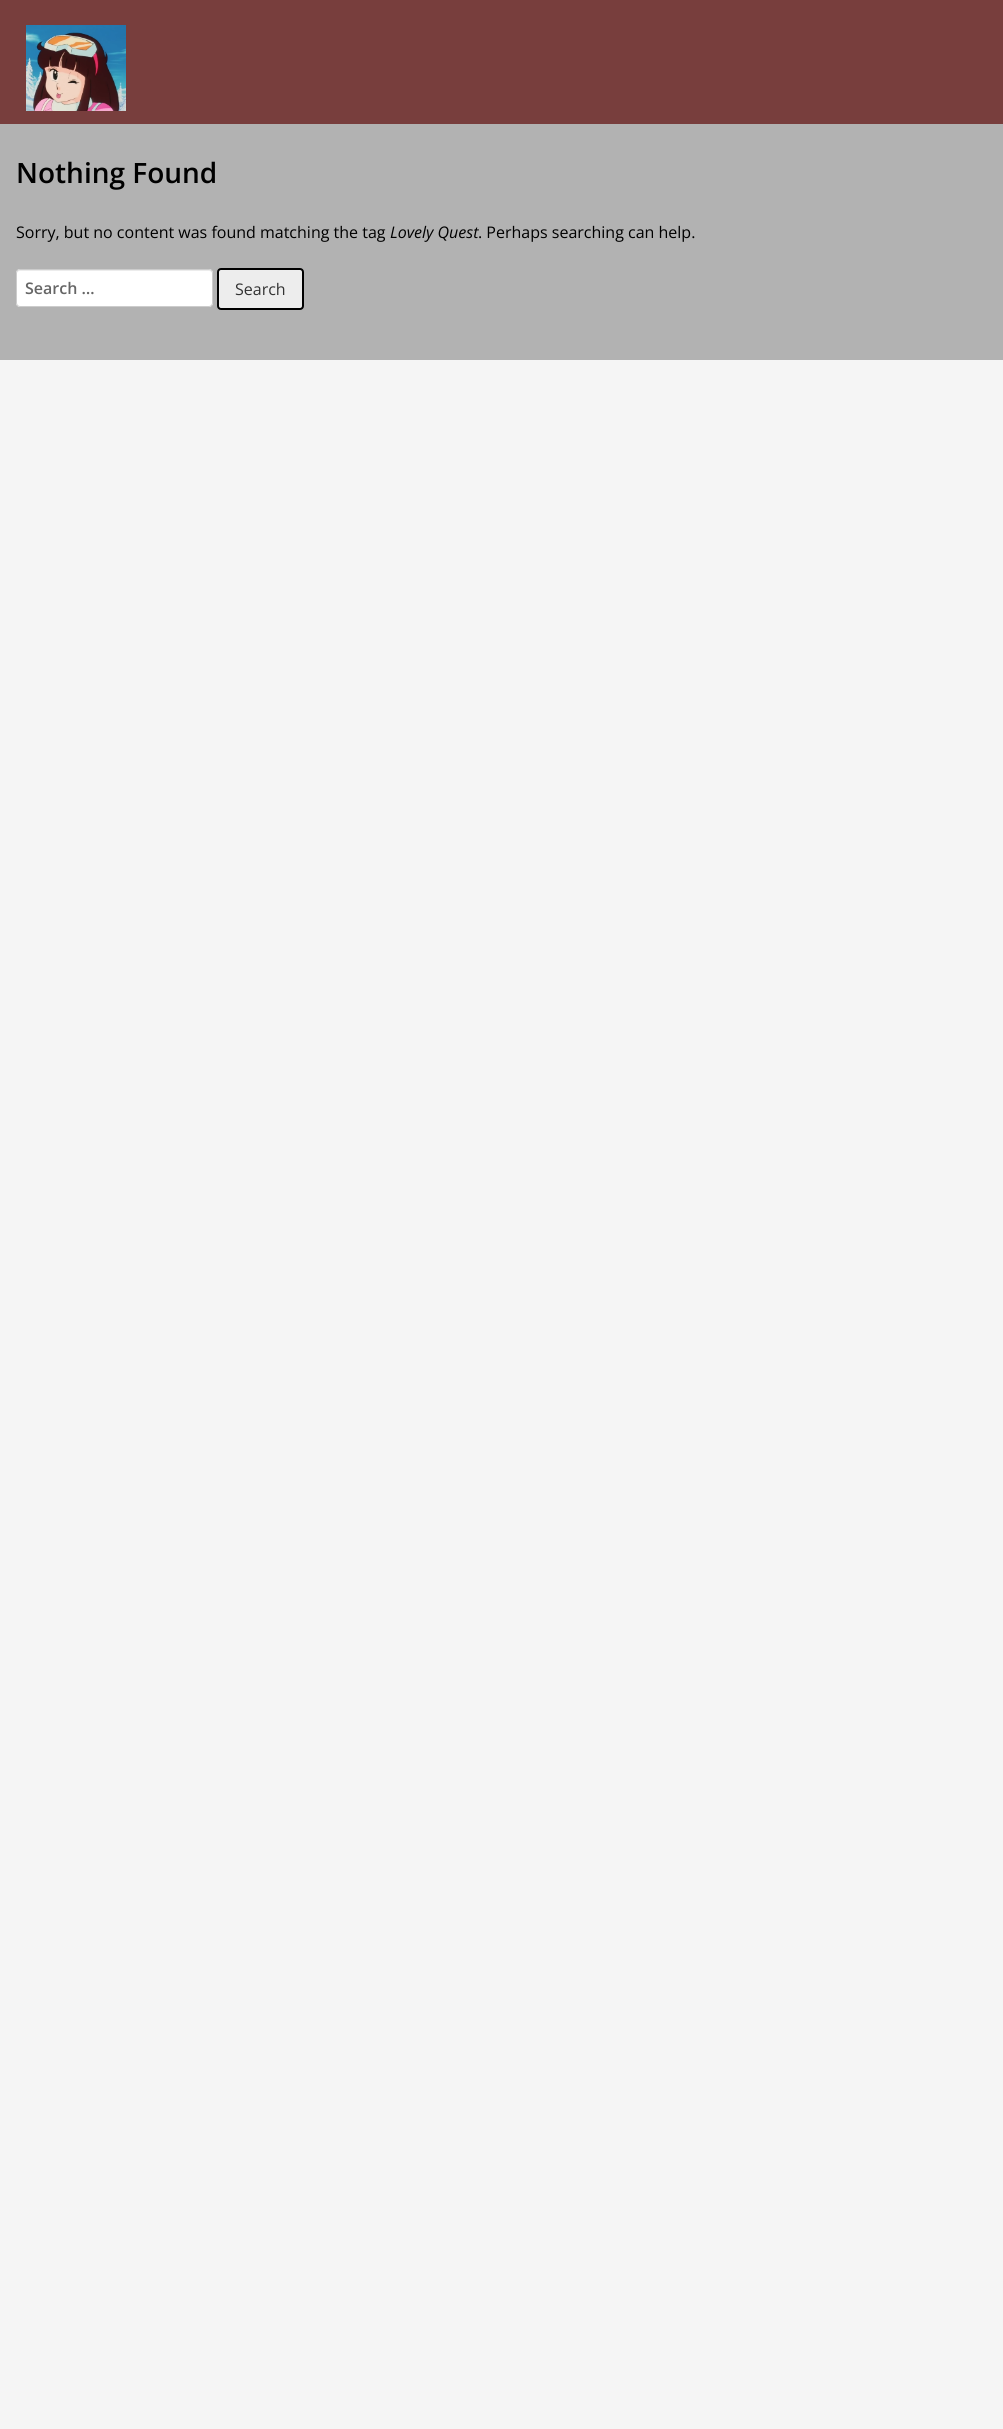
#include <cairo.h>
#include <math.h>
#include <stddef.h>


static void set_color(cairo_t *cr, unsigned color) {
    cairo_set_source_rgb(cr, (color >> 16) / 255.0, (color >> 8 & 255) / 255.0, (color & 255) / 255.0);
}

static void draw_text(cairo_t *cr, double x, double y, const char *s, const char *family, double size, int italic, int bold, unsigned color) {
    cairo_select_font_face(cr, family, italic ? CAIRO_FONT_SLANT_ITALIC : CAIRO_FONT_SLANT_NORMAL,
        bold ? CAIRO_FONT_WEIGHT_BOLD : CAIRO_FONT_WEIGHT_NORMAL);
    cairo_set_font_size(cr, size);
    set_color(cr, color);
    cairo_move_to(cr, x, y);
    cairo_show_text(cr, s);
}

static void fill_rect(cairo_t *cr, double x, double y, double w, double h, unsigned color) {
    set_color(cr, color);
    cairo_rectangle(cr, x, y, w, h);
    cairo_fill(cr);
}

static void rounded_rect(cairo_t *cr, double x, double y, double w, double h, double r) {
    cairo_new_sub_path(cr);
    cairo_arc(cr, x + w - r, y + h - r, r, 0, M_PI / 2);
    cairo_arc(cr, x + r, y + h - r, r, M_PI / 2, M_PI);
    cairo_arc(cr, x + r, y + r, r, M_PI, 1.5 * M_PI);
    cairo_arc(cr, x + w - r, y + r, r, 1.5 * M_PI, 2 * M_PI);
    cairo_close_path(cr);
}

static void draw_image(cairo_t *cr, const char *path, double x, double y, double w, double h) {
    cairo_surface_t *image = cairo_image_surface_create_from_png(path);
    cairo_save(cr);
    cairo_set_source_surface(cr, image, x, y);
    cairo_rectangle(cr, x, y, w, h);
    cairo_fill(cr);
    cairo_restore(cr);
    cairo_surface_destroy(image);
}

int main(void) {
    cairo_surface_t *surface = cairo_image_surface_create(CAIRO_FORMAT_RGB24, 1003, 2429);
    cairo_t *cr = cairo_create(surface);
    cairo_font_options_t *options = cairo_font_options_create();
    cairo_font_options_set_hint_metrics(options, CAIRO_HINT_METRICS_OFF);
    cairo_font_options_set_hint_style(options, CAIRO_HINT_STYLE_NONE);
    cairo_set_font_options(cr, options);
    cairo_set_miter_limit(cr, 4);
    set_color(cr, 0xF5F5F5);
    cairo_paint(cr);
    fill_rect(cr, 0, 0, 1003, 12, 0x783E3D);
    fill_rect(cr, 0, 12, 1003, 112, 0x783E3D);
    draw_image(cr, "assets/img1.png", 26, 25, 100, 86);
    fill_rect(cr, 0, 124, 1003, 236, 0xB2B2B2);
    draw_text(cr, 16, 183, "Nothing Found", "Open Sans SemiBold", 28, 0, 0, 0x000000);
    draw_text(cr, 16, 238, "Sorry, but no content was found matching the tag", "Open Sans", 16, 0, 0, 0x000000);
    draw_text(cr, 390, 238, "Lovely Quest", "Open Sans", 16, 1, 0, 0x000000);
    draw_text(cr, 478, 238, ". Perhaps searching can help.", "Open Sans", 16, 0, 0, 0x000000);
    set_color(cr, 0xFFFFFF);
    rounded_rect(cr, 16, 269, 197, 38, 4);
    cairo_fill(cr);
    set_color(cr, 0xECECEC);
    cairo_new_path(cr);
    cairo_move_to(cr, 20, 271);
    cairo_line_to(cr, 209, 271);
    cairo_curve_to(cr, 211, 271, 212, 272, 212, 274);
    cairo_curve_to(cr, 212, 272, 211, 270, 209, 270);
    cairo_line_to(cr, 20, 270);
    cairo_curve_to(cr, 18, 270, 17, 272, 17, 274);
    cairo_curve_to(cr, 17, 272, 18, 271, 20, 271);
    cairo_close_path(cr);
    cairo_fill(cr);
    rounded_rect(cr, 16.5, 269.5, 196, 37, 3.5);
    set_color(cr, 0xCCCCCC);
    cairo_set_line_width(cr, 1);
    cairo_stroke(cr);
    draw_text(cr, 25, 294, "Search …", "Open Sans SemiBold", 16, 0, 0, 0x666666);
    set_color(cr, 0xEDEDED);
    rounded_rect(cr, 218, 269, 85, 40, 3);
    cairo_fill_preserve(cr);
    set_color(cr, 0x000000);
    cairo_set_line_width(cr, 2);
    cairo_stroke(cr);
    draw_text(cr, 235, 295, "Search", "Open Sans", 16, 0, 0, 0x333333);
    cairo_surface_write_to_png(surface, "output.png");
    cairo_font_options_destroy(options);
    cairo_destroy(cr);
    cairo_surface_destroy(surface);
    return 0;
}
